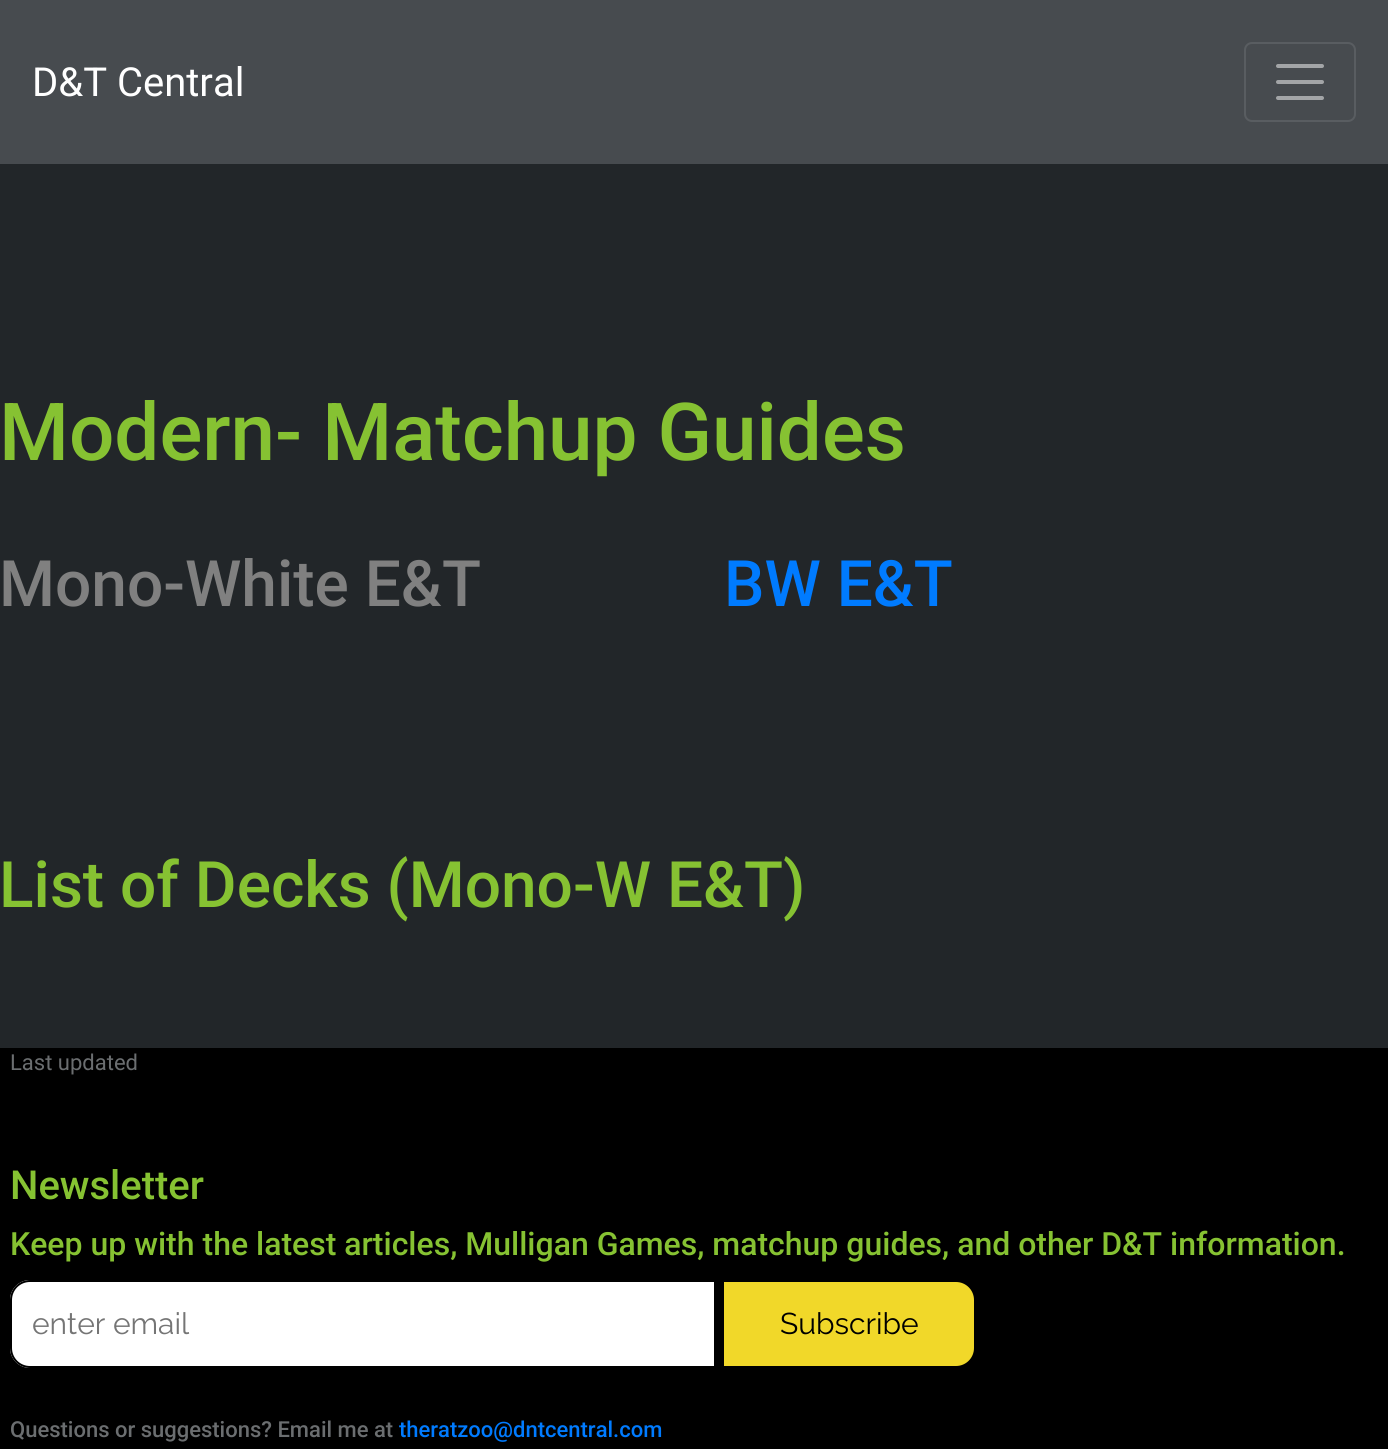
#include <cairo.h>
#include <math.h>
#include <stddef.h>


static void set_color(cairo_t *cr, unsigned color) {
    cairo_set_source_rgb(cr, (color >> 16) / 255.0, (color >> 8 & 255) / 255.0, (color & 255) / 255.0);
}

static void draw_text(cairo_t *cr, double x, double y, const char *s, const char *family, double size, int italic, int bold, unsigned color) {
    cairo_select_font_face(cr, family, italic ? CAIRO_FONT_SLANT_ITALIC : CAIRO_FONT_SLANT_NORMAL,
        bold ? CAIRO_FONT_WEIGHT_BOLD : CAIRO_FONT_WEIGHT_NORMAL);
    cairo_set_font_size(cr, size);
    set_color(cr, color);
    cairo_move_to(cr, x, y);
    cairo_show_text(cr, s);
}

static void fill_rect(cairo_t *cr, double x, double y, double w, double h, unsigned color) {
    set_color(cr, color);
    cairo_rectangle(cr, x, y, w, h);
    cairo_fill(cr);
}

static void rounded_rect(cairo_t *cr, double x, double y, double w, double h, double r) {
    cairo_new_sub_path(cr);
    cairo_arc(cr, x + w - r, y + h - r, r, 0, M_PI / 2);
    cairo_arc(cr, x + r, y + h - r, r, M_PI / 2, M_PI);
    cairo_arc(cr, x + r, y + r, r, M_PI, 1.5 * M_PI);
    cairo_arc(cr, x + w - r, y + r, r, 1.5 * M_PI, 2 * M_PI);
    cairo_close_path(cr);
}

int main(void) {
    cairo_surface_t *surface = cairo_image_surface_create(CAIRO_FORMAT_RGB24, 1388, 1449);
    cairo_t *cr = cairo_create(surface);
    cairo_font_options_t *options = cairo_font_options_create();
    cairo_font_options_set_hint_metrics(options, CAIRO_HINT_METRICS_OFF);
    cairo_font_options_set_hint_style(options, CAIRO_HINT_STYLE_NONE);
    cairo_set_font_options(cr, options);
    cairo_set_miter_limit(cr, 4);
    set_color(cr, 0x222629);
    cairo_paint(cr);
    fill_rect(cr, 0, 0, 1388, 164, 0x474B4F);
    draw_text(cr, 32, 96, "D&T Central", "Roboto", 40, 0, 0, 0xFFFFFF);
    rounded_rect(cr, 1245, 43, 110, 78, 7);
    set_color(cr, 0x595D61);
    cairo_stroke(cr);
    cairo_new_path(cr);
    cairo_move_to(cr, 1278, 66);
    cairo_line_to(cr, 1322, 66);
    cairo_move_to(cr, 1278, 82);
    cairo_line_to(cr, 1322, 82);
    cairo_move_to(cr, 1278, 98);
    cairo_line_to(cr, 1322, 98);
    set_color(cr, 0xA3A5A7);
    cairo_set_line_width(cr, 4);
    cairo_set_line_cap(cr, CAIRO_LINE_CAP_ROUND);
    cairo_stroke(cr);
    draw_text(cr, -1, 460, "Modern- Matchup Guides", "Roboto Medium", 80, 0, 0, 0x86C232);
    draw_text(cr, -1, 606, "Mono-White E&T", "Roboto Medium", 64, 0, 0, 0x808080);
    draw_text(cr, 724, 606, "BW E&T", "Roboto Medium", 64, 0, 0, 0x007BFF);
    draw_text(cr, -1, 907, "List of Decks (Mono-W E&T)", "Roboto Medium", 64, 0, 0, 0x86C232);
    fill_rect(cr, 0, 1048, 1388, 401, 0x000000);
    draw_text(cr, 10, 1070, "Last updated", "Roboto", 22, 0, 0, 0x6B6E70);
    draw_text(cr, 10, 1199, "Newsletter", "Roboto Medium", 40, 0, 0, 0x86C232);
    draw_text(cr, 10, 1255, "Keep up with the latest articles, Mulligan Games, matchup guides, and other D&T information.", "Roboto Medium", 32, 0, 0, 0x86C232);
    set_color(cr, 0xFFFFFF);
    cairo_new_path(cr);
    cairo_move_to(cr, 30, 1280);
    cairo_line_to(cr, 714, 1280);
    cairo_line_to(cr, 714, 1368);
    cairo_line_to(cr, 30, 1368);
    cairo_curve_to(cr, 19, 1368, 10, 1359, 10, 1348);
    cairo_line_to(cr, 10, 1300);
    cairo_curve_to(cr, 10, 1289, 19, 1280, 30, 1280);
    cairo_close_path(cr);
    cairo_fill(cr);
    set_color(cr, 0x000000);
    cairo_set_fill_rule(cr, CAIRO_FILL_RULE_EVEN_ODD);
    cairo_new_path(cr);
    cairo_move_to(cr, 30, 1280);
    cairo_line_to(cr, 714, 1280);
    cairo_line_to(cr, 714, 1368);
    cairo_line_to(cr, 30, 1368);
    cairo_curve_to(cr, 19, 1368, 10, 1359, 10, 1348);
    cairo_line_to(cr, 10, 1300);
    cairo_curve_to(cr, 10, 1289, 19, 1280, 30, 1280);
    cairo_close_path(cr);
    cairo_move_to(cr, 30, 1282);
    cairo_line_to(cr, 714, 1282);
    cairo_line_to(cr, 714, 1366);
    cairo_line_to(cr, 30, 1366);
    cairo_curve_to(cr, 20, 1366, 12, 1358, 12, 1348);
    cairo_line_to(cr, 12, 1300);
    cairo_curve_to(cr, 12, 1290, 20, 1282, 30, 1282);
    cairo_close_path(cr);
    cairo_fill(cr);
    draw_text(cr, 32, 1334, "enter email", "Raleway", 30, 0, 0, 0x757575);
    set_color(cr, 0xF1D829);
    cairo_new_path(cr);
    cairo_move_to(cr, 723, 1281);
    cairo_line_to(cr, 956, 1281);
    cairo_curve_to(cr, 966.5, 1281, 975, 1289.5, 975, 1300);
    cairo_line_to(cr, 975, 1348);
    cairo_curve_to(cr, 975, 1358.5, 966.5, 1367, 956, 1367);
    cairo_line_to(cr, 723, 1367);
    cairo_close_path(cr);
    cairo_fill_preserve(cr);
    set_color(cr, 0x000000);
    cairo_set_line_width(cr, 2);
    cairo_set_line_cap(cr, CAIRO_LINE_CAP_BUTT);
    cairo_stroke(cr);
    draw_text(cr, 780, 1334, "Subscribe", "Raleway", 30, 0, 0, 0x000000);
    draw_text(cr, 10, 1437, "Questions or suggestions? Email me at", "Roboto Medium", 22, 0, 0, 0x6B6E70);
    draw_text(cr, 399, 1437, "theratzoo@dntcentral.com", "Roboto Medium", 22, 0, 0, 0x007BFF);
    cairo_surface_write_to_png(surface, "output.png");
    cairo_font_options_destroy(options);
    cairo_destroy(cr);
    cairo_surface_destroy(surface);
    return 0;
}
